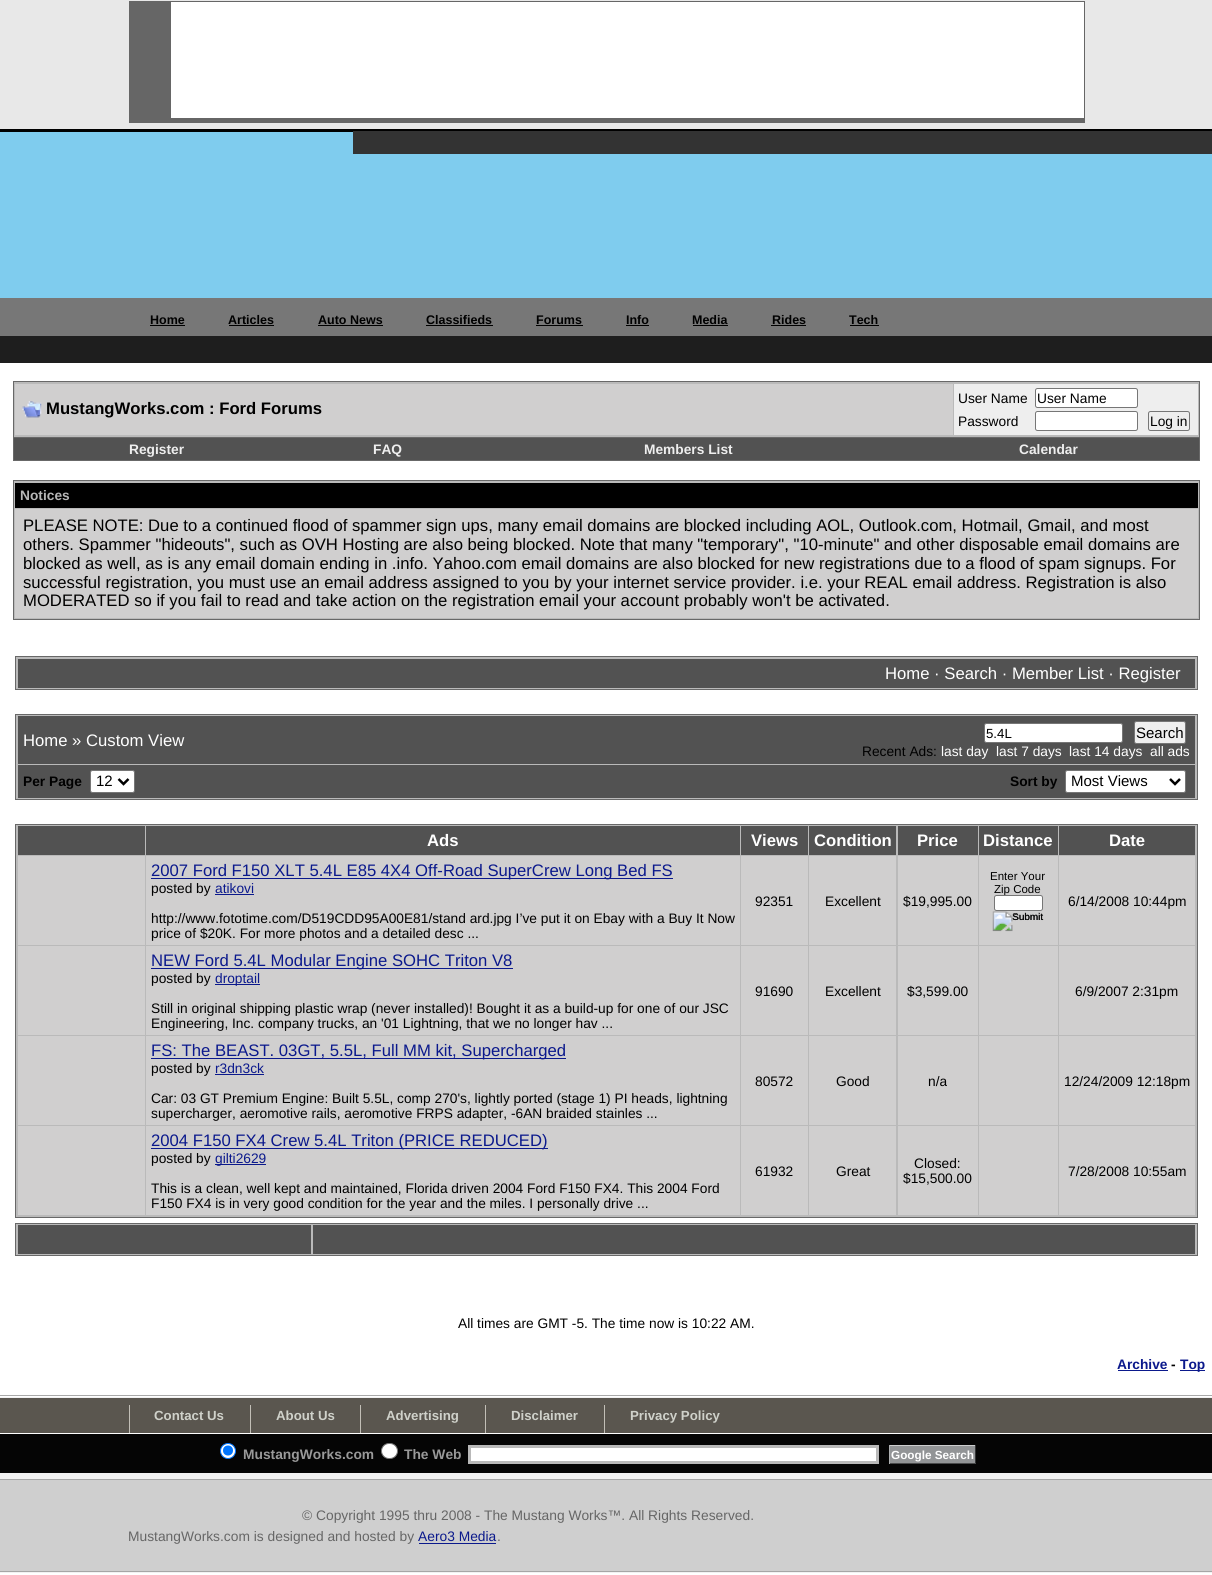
#include <cairo.h>
#include <math.h>
#include <stddef.h>


static void set_color(cairo_t *cr, unsigned color) {
    cairo_set_source_rgb(cr, (color >> 16) / 255.0, (color >> 8 & 255) / 255.0, (color & 255) / 255.0);
}

static void draw_text(cairo_t *cr, double x, double y, const char *s, const char *family, double size, int italic, int bold, unsigned color) {
    cairo_select_font_face(cr, family, italic ? CAIRO_FONT_SLANT_ITALIC : CAIRO_FONT_SLANT_NORMAL,
        bold ? CAIRO_FONT_WEIGHT_BOLD : CAIRO_FONT_WEIGHT_NORMAL);
    cairo_set_font_size(cr, size);
    set_color(cr, color);
    cairo_move_to(cr, x, y);
    cairo_show_text(cr, s);
}

static void fill_rect(cairo_t *cr, double x, double y, double w, double h, unsigned color) {
    set_color(cr, color);
    cairo_rectangle(cr, x, y, w, h);
    cairo_fill(cr);
}

static void rounded_rect(cairo_t *cr, double x, double y, double w, double h, double r) {
    cairo_new_sub_path(cr);
    cairo_arc(cr, x + w - r, y + h - r, r, 0, M_PI / 2);
    cairo_arc(cr, x + r, y + h - r, r, M_PI / 2, M_PI);
    cairo_arc(cr, x + r, y + r, r, M_PI, 1.5 * M_PI);
    cairo_arc(cr, x + w - r, y + r, r, 1.5 * M_PI, 2 * M_PI);
    cairo_close_path(cr);
}

static void draw_image(cairo_t *cr, const char *path, double x, double y, double w, double h) {
    cairo_surface_t *image = cairo_image_surface_create_from_png(path);
    cairo_save(cr);
    cairo_set_source_surface(cr, image, x, y);
    cairo_rectangle(cr, x, y, w, h);
    cairo_fill(cr);
    cairo_restore(cr);
    cairo_surface_destroy(image);
}

int main(void) {
    cairo_surface_t *surface = cairo_image_surface_create(CAIRO_FORMAT_RGB24, 1212, 1575);
    cairo_t *cr = cairo_create(surface);
    cairo_font_options_t *options = cairo_font_options_create();
    cairo_font_options_set_hint_metrics(options, CAIRO_HINT_METRICS_OFF);
    cairo_font_options_set_hint_style(options, CAIRO_HINT_STYLE_NONE);
    cairo_set_font_options(cr, options);
    cairo_set_miter_limit(cr, 4);
    set_color(cr, 0xFFFFFF);
    cairo_paint(cr);
    fill_rect(cr, 0, 0, 1212, 129, 0xE8E8E8);
    fill_rect(cr, 129, 1, 956, 122, 0x666666);
    fill_rect(cr, 171, 2, 913, 116, 0xFFFFFF);
    fill_rect(cr, 0, 132, 1212, 166, 0x7FCCEE);
    fill_rect(cr, 0, 129, 1212, 3, 0x000000);
    fill_rect(cr, 353, 131, 859, 23, 0x333333);
    fill_rect(cr, 0, 298, 1212, 38, 0x777777);
    draw_text(cr, 150, 324, "Home", "Liberation Sans", 12.5, 0, 1, 0x000000);
    fill_rect(cr, 150, 325, 35, 1, 0x000000);
    draw_text(cr, 228, 324, "Articles", "Liberation Sans", 12.5, 0, 1, 0x000000);
    fill_rect(cr, 229, 325, 45, 1, 0x000000);
    draw_text(cr, 318, 324, "Auto News", "Liberation Sans", 12.5, 0, 1, 0x000000);
    fill_rect(cr, 318, 325, 65, 1, 0x000000);
    draw_text(cr, 426, 324, "Classifieds", "Liberation Sans", 12.5, 0, 1, 0x000000);
    fill_rect(cr, 426, 325, 67, 1, 0x000000);
    draw_text(cr, 536, 324, "Forums", "Liberation Sans", 12.5, 0, 1, 0x000000);
    fill_rect(cr, 536, 325, 47, 1, 0x000000);
    draw_text(cr, 626, 324, "Info", "Liberation Sans", 12.5, 0, 1, 0x000000);
    fill_rect(cr, 626, 325, 23, 1, 0x000000);
    draw_text(cr, 692, 324, "Media", "Liberation Sans", 12.5, 0, 1, 0x000000);
    fill_rect(cr, 693, 325, 35, 1, 0x000000);
    draw_text(cr, 772, 324, "Rides", "Liberation Sans", 12.5, 0, 1, 0x000000);
    fill_rect(cr, 771, 325, 35, 1, 0x000000);
    draw_text(cr, 849, 324, "Tech", "Liberation Sans", 12.5, 0, 1, 0x000000);
    fill_rect(cr, 850, 325, 29, 1, 0x000000);
    fill_rect(cr, 0, 336, 1212, 27, 0x1E1E1E);
    set_color(cr, 0xBABABA);
    cairo_rectangle(cr, 13.5, 381.5, 1186, 56);
    cairo_fill_preserve(cr);
    set_color(cr, 0x686868);
    cairo_set_line_width(cr, 1);
    cairo_stroke(cr);
    fill_rect(cr, 15, 384, 938, 51, 0xD0CFCF);
    draw_image(cr, "assets/img1.png", 22, 401, 20, 17);
    draw_text(cr, 46, 414, "MustangWorks.com : Ford Forums", "Liberation Sans", 16.67, 0, 1, 0x000000);
    fill_rect(cr, 954, 384, 244, 51, 0xEEEEEE);
    draw_text(cr, 958, 403, "User Name", "Liberation Sans", 13.75, 0, 0, 0x000000);
    set_color(cr, 0xFFFFFF);
    rounded_rect(cr, 1035.5, 388.5, 102, 19, 2);
    cairo_fill_preserve(cr);
    set_color(cr, 0x767676);
    cairo_stroke(cr);
    draw_text(cr, 1037, 403, "User Name", "Liberation Sans", 13.75, 0, 0, 0x000000);
    draw_text(cr, 958, 426, "Password", "Liberation Sans", 13.75, 0, 0, 0x000000);
    set_color(cr, 0xFFFFFF);
    rounded_rect(cr, 1035.5, 411.5, 102, 19, 2);
    cairo_fill_preserve(cr);
    set_color(cr, 0x767676);
    cairo_stroke(cr);
    rounded_rect(cr, 1148.5, 411.5, 41, 19, 2);
    cairo_stroke(cr);
    draw_text(cr, 1150, 426, "Log in", "Liberation Sans", 13.75, 0, 0, 0x000000);
    fill_rect(cr, 1199, 438, 1, 23, 0x686868);
    fill_rect(cr, 13, 460, 1187, 1, 0x686868);
    fill_rect(cr, 13, 438, 1, 23, 0x686868);
    fill_rect(cr, 14, 438, 1185, 22, 0x525252);
    draw_text(cr, 129, 454, "Register", "Liberation Sans", 13.75, 0, 1, 0xEEEEEE);
    draw_text(cr, 373, 454, "FAQ", "Liberation Sans", 13.75, 0, 1, 0xEEEEEE);
    draw_text(cr, 644, 454, "Members List", "Liberation Sans", 13.75, 0, 1, 0xEEEEEE);
    draw_text(cr, 1019, 454, "Calendar", "Liberation Sans", 13.75, 0, 1, 0xEEEEEE);
    set_color(cr, 0xBABABA);
    cairo_rectangle(cr, 13.5, 480.5, 1186, 139);
    cairo_fill_preserve(cr);
    set_color(cr, 0x686868);
    cairo_stroke(cr);
    fill_rect(cr, 15, 483, 1183, 25, 0x000000);
    draw_text(cr, 20, 500, "Notices", "Liberation Sans", 13.75, 0, 1, 0xB7B7B7);
    fill_rect(cr, 15, 509, 1183, 109, 0xD0CFCF);
    draw_text(cr, 23, 531, "PLEASE NOTE: Due to a continued flood of spammer sign ups, many email domains are blocked including AOL, Outlook.com, Hotmail, Gmail, and most", "Liberation Sans", 16.67, 0, 0, 0x000000);
    draw_text(cr, 23, 550, "others. Spammer \"hideouts\", such as OVH Hosting are also being blocked. Note that many \"temporary\", \"10-minute\" and other disposable email domains are", "Liberation Sans", 16.67, 0, 0, 0x000000);
    draw_text(cr, 23, 569, "blocked as well, as is any email domain ending in .info. Yahoo.com email domains are also blocked for new registrations due to a flood of spam signups. For", "Liberation Sans", 16.67, 0, 0, 0x000000);
    draw_text(cr, 23, 588, "successful registration, you must use an email address assigned to you by your internet service provider. i.e. your REAL email address. Registration is also", "Liberation Sans", 16.67, 0, 0, 0x000000);
    draw_text(cr, 23, 606, "MODERATED so if you fail to read and take action on the registration email your account probably won't be activated.", "Liberation Sans", 16.67, 0, 0, 0x000000);
    set_color(cr, 0xBABABA);
    cairo_rectangle(cr, 15.5, 656.5, 1182, 33);
    cairo_fill_preserve(cr);
    set_color(cr, 0x686868);
    cairo_stroke(cr);
    fill_rect(cr, 18, 659, 1177, 29, 0x525252);
    draw_text(cr, 885, 679, "Home · Search · Member List · Register", "Liberation Sans", 16.67, 0, 0, 0xFFFFFF);
    set_color(cr, 0xBABABA);
    cairo_rectangle(cr, 15.5, 714.5, 1182, 85);
    cairo_fill_preserve(cr);
    set_color(cr, 0x686868);
    cairo_stroke(cr);
    fill_rect(cr, 18, 716, 1177, 48, 0x525252);
    draw_text(cr, 23, 746, "Home » Custom View", "Liberation Sans", 16.67, 0, 0, 0xFFFFFF);
    rounded_rect(cr, 984.5, 723.5, 138, 19, 2);
    cairo_fill_preserve(cr);
    set_color(cr, 0x767676);
    cairo_stroke(cr);
    draw_text(cr, 986, 738, "5.4L", "Liberation Sans", 13.25, 0, 0, 0x000000);
    set_color(cr, 0xEFEFEF);
    rounded_rect(cr, 1134.5, 721.5, 51, 22, 2);
    cairo_fill_preserve(cr);
    set_color(cr, 0x767676);
    cairo_stroke(cr);
    draw_text(cr, 1136, 738, "Search", "Liberation Sans", 15, 0, 0, 0x000000);
    draw_text(cr, 862, 756, "Recent Ads:", "Liberation Sans", 13.75, 0, 0, 0x000000);
    draw_text(cr, 941, 756, "last day", "Liberation Sans", 13.75, 0, 0, 0xFFFFFF);
    draw_text(cr, 996, 756, "last 7 days", "Liberation Sans", 13.75, 0, 0, 0xFFFFFF);
    draw_text(cr, 1069, 756, "last 14 days", "Liberation Sans", 13.75, 0, 0, 0xFFFFFF);
    draw_text(cr, 1150, 756, "all ads", "Liberation Sans", 13.75, 0, 0, 0xFFFFFF);
    fill_rect(cr, 18, 765, 1177, 33, 0x525252);
    draw_text(cr, 23, 786, "Per Page", "Liberation Sans", 13.75, 0, 1, 0x000000);
    set_color(cr, 0xFFFFFF);
    rounded_rect(cr, 90.5, 770.5, 44, 22, 2);
    cairo_fill_preserve(cr);
    set_color(cr, 0x767676);
    cairo_stroke(cr);
    cairo_new_path(cr);
    cairo_move_to(cr, 118.5, 779);
    cairo_line_to(cr, 123.5, 784);
    cairo_line_to(cr, 128.5, 779);
    set_color(cr, 0x000000);
    cairo_set_line_width(cr, 2.5);
    cairo_stroke(cr);
    draw_text(cr, 96, 786, "12", "Liberation Sans", 15, 0, 0, 0x000000);
    draw_text(cr, 1010, 786, "Sort by", "Liberation Sans", 13.75, 0, 1, 0x000000);
    set_color(cr, 0xFFFFFF);
    rounded_rect(cr, 1065.5, 770.5, 120, 22, 2);
    cairo_fill_preserve(cr);
    set_color(cr, 0x767676);
    cairo_set_line_width(cr, 1);
    cairo_stroke(cr);
    cairo_new_path(cr);
    cairo_move_to(cr, 1170, 779);
    cairo_line_to(cr, 1175, 784);
    cairo_line_to(cr, 1180, 779);
    set_color(cr, 0x000000);
    cairo_set_line_width(cr, 2.5);
    cairo_stroke(cr);
    draw_text(cr, 1071, 786, "Most Views", "Liberation Sans", 15, 0, 0, 0x000000);
    set_color(cr, 0xBABABA);
    cairo_rectangle(cr, 15.5, 824.5, 1182, 393);
    cairo_fill_preserve(cr);
    set_color(cr, 0x686868);
    cairo_set_line_width(cr, 1);
    cairo_stroke(cr);
    fill_rect(cr, 18, 826, 127, 29, 0x525252);
    fill_rect(cr, 146, 826, 594, 29, 0x525252);
    draw_text(cr, 427, 846, "Ads", "Liberation Sans", 16.67, 0, 1, 0xFFFFFF);
    fill_rect(cr, 741, 826, 67, 29, 0x525252);
    draw_text(cr, 751, 846, "Views", "Liberation Sans", 16.67, 0, 1, 0xFFFFFF);
    fill_rect(cr, 809, 826, 87, 29, 0x525252);
    draw_text(cr, 814, 846, "Condition", "Liberation Sans", 16.67, 0, 1, 0xFFFFFF);
    fill_rect(cr, 898, 826, 80, 29, 0x525252);
    draw_text(cr, 917, 846, "Price", "Liberation Sans", 16.67, 0, 1, 0xFFFFFF);
    fill_rect(cr, 979, 826, 79, 29, 0x525252);
    draw_text(cr, 983, 846, "Distance", "Liberation Sans", 16.67, 0, 1, 0xFFFFFF);
    fill_rect(cr, 1059, 826, 136, 29, 0x525252);
    draw_text(cr, 1109, 846, "Date", "Liberation Sans", 16.67, 0, 1, 0xFFFFFF);
    fill_rect(cr, 18, 856, 127, 89, 0xD0CFCF);
    fill_rect(cr, 146, 856, 594, 89, 0xD0CFCF);
    fill_rect(cr, 151, 878, 522, 1, 0x0B198C);
    draw_text(cr, 151, 876, "2007 Ford F150 XLT 5.4L E85 4X4 Off-Road SuperCrew Long Bed FS", "Liberation Sans", 16.67, 0, 0, 0x0B198C);
    draw_text(cr, 151, 893, "posted by", "Liberation Sans", 13.75, 0, 0, 0x000000);
    draw_text(cr, 215, 893, "atikovi", "Liberation Sans", 13.75, 0, 0, 0x0B198C);
    fill_rect(cr, 215, 894, 39, 1, 0x0B198C);
    draw_text(cr, 151, 923, "http://www.fototime.com/D519CDD95A00E81/stand ard.jpg I’ve put it on Ebay with a Buy It Now", "Liberation Sans", 13.75, 0, 0, 0x000000);
    draw_text(cr, 151, 938, "price of $20K. For more photos and a detailed desc ...", "Liberation Sans", 13.75, 0, 0, 0x000000);
    fill_rect(cr, 741, 856, 67, 89, 0xD0CFCF);
    draw_text(cr, 755, 906, "92351", "Liberation Sans", 13.75, 0, 0, 0x000000);
    fill_rect(cr, 809, 856, 87, 89, 0xD0CFCF);
    draw_text(cr, 825, 906, "Excellent", "Liberation Sans", 13.75, 0, 0, 0x000000);
    fill_rect(cr, 898, 856, 80, 89, 0xD0CFCF);
    draw_text(cr, 903, 906, "$19,995.00", "Liberation Sans", 13.75, 0, 0, 0x000000);
    fill_rect(cr, 979, 856, 79, 89, 0xD0CFCF);
    draw_text(cr, 990, 880, "Enter Your", "Liberation Sans", 11.5, 0, 0, 0x000000);
    draw_text(cr, 994, 893, "Zip Code", "Liberation Sans", 11.5, 0, 0, 0x000000);
    set_color(cr, 0xFFFFFF);
    rounded_rect(cr, 994.5, 895.5, 48, 15, 2);
    cairo_fill_preserve(cr);
    set_color(cr, 0x767676);
    cairo_stroke(cr);
    draw_image(cr, "assets/img2.png", 992, 911, 52, 21);
    draw_text(cr, 1012, 920, "Submit", "Liberation Sans", 10, 0, 0, 0x000000);
    fill_rect(cr, 1059, 856, 136, 89, 0xD0CFCF);
    draw_text(cr, 1068, 906, "6/14/2008 10:44pm", "Liberation Sans", 13.75, 0, 0, 0x000000);
    fill_rect(cr, 18, 946, 127, 89, 0xD0CFCF);
    fill_rect(cr, 146, 946, 594, 89, 0xD0CFCF);
    fill_rect(cr, 151, 968, 362, 1, 0x0B198C);
    draw_text(cr, 151, 966, "NEW Ford 5.4L Modular Engine SOHC Triton V8", "Liberation Sans", 16.67, 0, 0, 0x0B198C);
    draw_text(cr, 151, 983, "posted by", "Liberation Sans", 13.75, 0, 0, 0x000000);
    fill_rect(cr, 215, 984, 45, 1, 0x0B198C);
    draw_text(cr, 215, 983, "droptail", "Liberation Sans", 13.75, 0, 0, 0x0B198C);
    draw_text(cr, 151, 1013, "Still in original shipping plastic wrap (never installed)! Bought it as a build-up for one of our JSC", "Liberation Sans", 13.75, 0, 0, 0x000000);
    draw_text(cr, 151, 1028, "Engineering, Inc. company trucks, an '01 Lightning, that we no longer hav ...", "Liberation Sans", 13.75, 0, 0, 0x000000);
    fill_rect(cr, 741, 946, 67, 89, 0xD0CFCF);
    draw_text(cr, 755, 996, "91690", "Liberation Sans", 13.75, 0, 0, 0x000000);
    fill_rect(cr, 809, 946, 87, 89, 0xD0CFCF);
    draw_text(cr, 825, 996, "Excellent", "Liberation Sans", 13.75, 0, 0, 0x000000);
    fill_rect(cr, 898, 946, 80, 89, 0xD0CFCF);
    draw_text(cr, 907, 996, "$3,599.00", "Liberation Sans", 13.75, 0, 0, 0x000000);
    fill_rect(cr, 979, 946, 79, 89, 0xD0CFCF);
    fill_rect(cr, 1059, 946, 136, 89, 0xD0CFCF);
    draw_text(cr, 1075, 996, "6/9/2007 2:31pm", "Liberation Sans", 13.75, 0, 0, 0x000000);
    fill_rect(cr, 18, 1036, 127, 89, 0xD0CFCF);
    fill_rect(cr, 146, 1036, 594, 89, 0xD0CFCF);
    fill_rect(cr, 151, 1058, 415, 1, 0x0B198C);
    draw_text(cr, 151, 1056, "FS: The BEAST. 03GT, 5.5L, Full MM kit, Supercharged", "Liberation Sans", 16.67, 0, 0, 0x0B198C);
    draw_text(cr, 151, 1073, "posted by", "Liberation Sans", 13.75, 0, 0, 0x000000);
    draw_text(cr, 215, 1073, "r3dn3ck", "Liberation Sans", 13.75, 0, 0, 0x0B198C);
    fill_rect(cr, 215, 1074, 49, 1, 0x0B198C);
    draw_text(cr, 151, 1103, "Car: 03 GT Premium Engine: Built 5.5L, comp 270's, lightly ported (stage 1) PI heads, lightning", "Liberation Sans", 13.75, 0, 0, 0x000000);
    draw_text(cr, 151, 1118, "supercharger, aeromotive rails, aeromotive FRPS adapter, -6AN braided stainles ...", "Liberation Sans", 13.75, 0, 0, 0x000000);
    fill_rect(cr, 741, 1036, 67, 89, 0xD0CFCF);
    draw_text(cr, 755, 1086, "80572", "Liberation Sans", 13.75, 0, 0, 0x000000);
    fill_rect(cr, 809, 1036, 87, 89, 0xD0CFCF);
    draw_text(cr, 836, 1086, "Good", "Liberation Sans", 13.75, 0, 0, 0x000000);
    fill_rect(cr, 898, 1036, 80, 89, 0xD0CFCF);
    draw_text(cr, 928, 1086, "n/a", "Liberation Sans", 13.75, 0, 0, 0x000000);
    fill_rect(cr, 979, 1036, 79, 89, 0xD0CFCF);
    fill_rect(cr, 1059, 1036, 136, 89, 0xD0CFCF);
    draw_text(cr, 1064, 1086, "12/24/2009 12:18pm", "Liberation Sans", 13.75, 0, 0, 0x000000);
    fill_rect(cr, 18, 1126, 127, 89, 0xD0CFCF);
    fill_rect(cr, 146, 1126, 594, 89, 0xD0CFCF);
    fill_rect(cr, 151, 1148, 397, 1, 0x0B198C);
    draw_text(cr, 151, 1146, "2004 F150 FX4 Crew 5.4L Triton (PRICE REDUCED)", "Liberation Sans", 16.67, 0, 0, 0x0B198C);
    draw_text(cr, 151, 1163, "posted by", "Liberation Sans", 13.75, 0, 0, 0x000000);
    fill_rect(cr, 215, 1164, 51, 1, 0x0B198C);
    draw_text(cr, 215, 1163, "gilti2629", "Liberation Sans", 13.75, 0, 0, 0x0B198C);
    draw_text(cr, 151, 1193, "This is a clean, well kept and maintained, Florida driven 2004 Ford F150 FX4. This 2004 Ford", "Liberation Sans", 13.75, 0, 0, 0x000000);
    draw_text(cr, 151, 1208, "F150 FX4 is in very good condition for the year and the miles. I personally drive ...", "Liberation Sans", 13.75, 0, 0, 0x000000);
    fill_rect(cr, 741, 1126, 67, 89, 0xD0CFCF);
    draw_text(cr, 755, 1176, "61932", "Liberation Sans", 13.75, 0, 0, 0x000000);
    fill_rect(cr, 809, 1126, 87, 89, 0xD0CFCF);
    draw_text(cr, 836, 1176, "Great", "Liberation Sans", 13.75, 0, 0, 0x000000);
    fill_rect(cr, 898, 1126, 80, 89, 0xD0CFCF);
    draw_text(cr, 914, 1168, "Closed:", "Liberation Sans", 13.75, 0, 0, 0x000000);
    draw_text(cr, 903, 1183, "$15,500.00", "Liberation Sans", 13.75, 0, 0, 0x000000);
    fill_rect(cr, 979, 1126, 79, 89, 0xD0CFCF);
    fill_rect(cr, 1059, 1126, 136, 89, 0xD0CFCF);
    draw_text(cr, 1068, 1176, "7/28/2008 10:55am", "Liberation Sans", 13.75, 0, 0, 0x000000);
    set_color(cr, 0xBABABA);
    cairo_rectangle(cr, 15.5, 1223.5, 1182, 32);
    cairo_fill_preserve(cr);
    set_color(cr, 0x686868);
    cairo_stroke(cr);
    fill_rect(cr, 18, 1225, 293, 29, 0x525252);
    fill_rect(cr, 313, 1225, 882, 29, 0x525252);
    draw_text(cr, 458, 1328, "All times are GMT -5. The time now is 10:22 AM.", "Liberation Sans", 13.75, 0, 0, 0x000000);
    draw_text(cr, 1117, 1369, "Archive", "Liberation Sans", 13.75, 0, 1, 0x0B198C);
    fill_rect(cr, 1118, 1370, 50, 1, 0x0B198C);
    draw_text(cr, 1171, 1369, "-", "Liberation Sans", 13.75, 0, 1, 0x000000);
    fill_rect(cr, 1180, 1370, 25, 1, 0x0B198C);
    draw_text(cr, 1180, 1369, "Top", "Liberation Sans", 13.75, 0, 1, 0x0B198C);
    fill_rect(cr, 0, 1395, 1212, 1, 0xA9A9A9);
    fill_rect(cr, 0, 1397, 1212, 176, 0xF2F2F2);
    fill_rect(cr, 0, 1398, 1212, 35, 0x5A564F);
    fill_rect(cr, 129, 1405, 1, 28, 0xC2BFB7);
    draw_text(cr, 154, 1420, "Contact Us", "Liberation Sans", 13.25, 0, 1, 0xCFD1CA);
    fill_rect(cr, 250, 1405, 1, 28, 0xC2BFB7);
    draw_text(cr, 276, 1420, "About Us", "Liberation Sans", 13.25, 0, 1, 0xCFD1CA);
    fill_rect(cr, 360, 1405, 1, 28, 0xC2BFB7);
    draw_text(cr, 386, 1420, "Advertising", "Liberation Sans", 13.25, 0, 1, 0xCFD1CA);
    fill_rect(cr, 485, 1405, 1, 28, 0xC2BFB7);
    draw_text(cr, 511, 1420, "Disclaimer", "Liberation Sans", 13.25, 0, 1, 0xCFD1CA);
    fill_rect(cr, 604, 1405, 1, 28, 0xC2BFB7);
    draw_text(cr, 630, 1420, "Privacy Policy", "Liberation Sans", 13.25, 0, 1, 0xCFD1CA);
    fill_rect(cr, 0, 1434, 1212, 39, 0x050505);
    fill_rect(cr, 0, 1433, 1212, 1, 0xFFFFFF);
    cairo_new_path(cr);
    cairo_arc(cr, 228, 1451, 7.5, 0, 2 * M_PI);
    cairo_fill_preserve(cr);
    set_color(cr, 0x0075FF);
    cairo_stroke(cr);
    cairo_arc(cr, 228, 1450.5, 5, 0, 2 * M_PI);
    cairo_fill(cr);
    draw_text(cr, 243, 1459, "MustangWorks.com", "Liberation Sans", 13.8, 0, 1, 0x999999);
    set_color(cr, 0xFFFFFF);
    rounded_rect(cr, 381.5, 1443.5, 16, 15, 7.5);
    cairo_fill_preserve(cr);
    set_color(cr, 0x767676);
    cairo_stroke(cr);
    draw_text(cr, 404, 1459, "The Web", "Liberation Sans", 13.8, 0, 1, 0x999999);
    set_color(cr, 0xFFFFFF);
    cairo_rectangle(cr, 469.5, 1446.5, 408, 16);
    cairo_fill_preserve(cr);
    set_color(cr, 0xB9B9B9);
    cairo_set_line_width(cr, 3);
    cairo_stroke(cr);
    fill_rect(cr, 890, 1446, 85, 17, 0x929496);
    fill_rect(cr, 889, 1445, 87, 1, 0xCDCECF);
    fill_rect(cr, 975, 1445, 1, 19, 0x333435);
    fill_rect(cr, 889, 1463, 87, 1, 0x494A4B);
    fill_rect(cr, 889, 1445, 1, 19, 0xAEB0B2);
    draw_text(cr, 891, 1459, "Google Search", "Liberation Sans", 11.75, 0, 1, 0xFFFFFF);
    fill_rect(cr, 0, 1480, 1212, 91, 0xCFCFCF);
    fill_rect(cr, 0, 1479, 1212, 1, 0xA6A6A6);
    fill_rect(cr, 0, 1571, 1212, 1, 0xA6A6A6);
    draw_text(cr, 302, 1520, "© Copyright 1995 thru 2008 - The Mustang Works™. All Rights Reserved.", "Liberation Sans", 13.8, 0, 0, 0x666666);
    draw_text(cr, 128, 1541, "MustangWorks.com is designed and hosted by", "Liberation Sans", 13.8, 0, 0, 0x666666);
    draw_text(cr, 418, 1541, "Aero3 Media", "Liberation Sans", 13.8, 0, 0, 0x0B198C);
    fill_rect(cr, 419, 1543, 77, 1, 0x0B198C);
    draw_text(cr, 497, 1541, ".", "Liberation Sans", 13.8, 0, 0, 0x666666);
    cairo_surface_write_to_png(surface, "output.png");
    cairo_font_options_destroy(options);
    cairo_destroy(cr);
    cairo_surface_destroy(surface);
    return 0;
}
